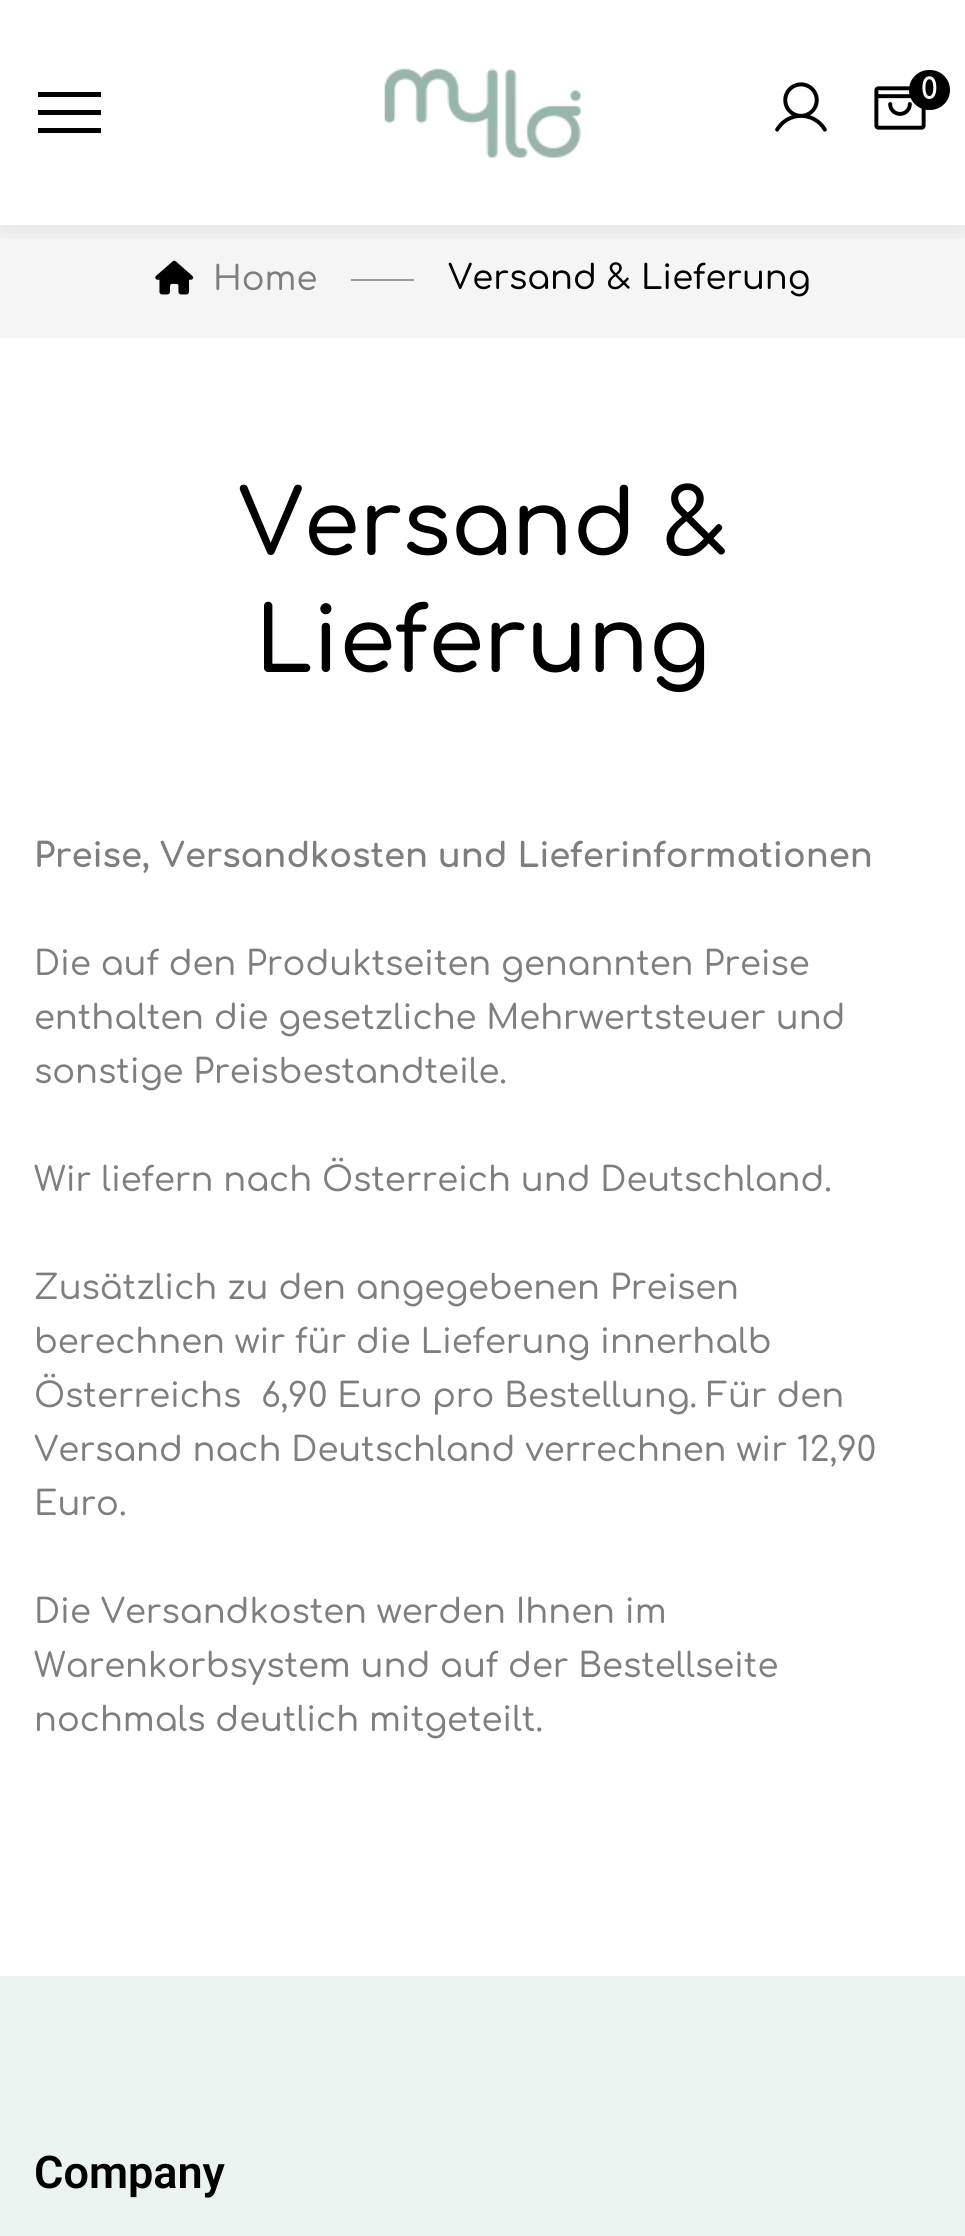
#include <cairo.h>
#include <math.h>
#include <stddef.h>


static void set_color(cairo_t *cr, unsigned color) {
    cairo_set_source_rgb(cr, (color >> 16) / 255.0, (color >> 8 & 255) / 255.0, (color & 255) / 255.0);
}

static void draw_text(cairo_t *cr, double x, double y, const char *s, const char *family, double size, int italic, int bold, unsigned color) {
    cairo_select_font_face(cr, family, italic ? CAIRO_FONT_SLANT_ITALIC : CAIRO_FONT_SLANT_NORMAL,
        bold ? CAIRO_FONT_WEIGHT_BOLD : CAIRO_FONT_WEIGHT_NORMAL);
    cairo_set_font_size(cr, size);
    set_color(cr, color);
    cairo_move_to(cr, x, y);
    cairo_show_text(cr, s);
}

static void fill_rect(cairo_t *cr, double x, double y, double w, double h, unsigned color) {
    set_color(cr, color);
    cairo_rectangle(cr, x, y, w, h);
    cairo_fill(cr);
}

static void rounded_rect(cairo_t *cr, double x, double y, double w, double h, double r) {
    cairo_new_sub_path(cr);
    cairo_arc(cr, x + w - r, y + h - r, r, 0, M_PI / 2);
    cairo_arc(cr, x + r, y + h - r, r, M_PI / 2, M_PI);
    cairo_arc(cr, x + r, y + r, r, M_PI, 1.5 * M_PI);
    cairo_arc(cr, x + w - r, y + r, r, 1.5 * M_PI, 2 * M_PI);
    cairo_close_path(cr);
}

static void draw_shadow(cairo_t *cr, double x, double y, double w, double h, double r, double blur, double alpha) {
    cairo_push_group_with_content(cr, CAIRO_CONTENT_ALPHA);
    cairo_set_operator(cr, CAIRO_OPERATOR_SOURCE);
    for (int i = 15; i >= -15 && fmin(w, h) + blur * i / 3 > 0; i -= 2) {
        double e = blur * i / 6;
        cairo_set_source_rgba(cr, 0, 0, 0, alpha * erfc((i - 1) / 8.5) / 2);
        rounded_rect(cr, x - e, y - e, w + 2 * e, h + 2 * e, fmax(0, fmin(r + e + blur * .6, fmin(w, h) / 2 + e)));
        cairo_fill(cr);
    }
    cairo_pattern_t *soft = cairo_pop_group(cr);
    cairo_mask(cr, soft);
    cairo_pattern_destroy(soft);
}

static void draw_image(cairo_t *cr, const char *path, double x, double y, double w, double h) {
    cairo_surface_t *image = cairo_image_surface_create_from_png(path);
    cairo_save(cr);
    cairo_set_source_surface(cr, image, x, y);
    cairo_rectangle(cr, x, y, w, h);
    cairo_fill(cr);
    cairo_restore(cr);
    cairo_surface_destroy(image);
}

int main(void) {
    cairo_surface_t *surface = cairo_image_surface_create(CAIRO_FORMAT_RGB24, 965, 2236);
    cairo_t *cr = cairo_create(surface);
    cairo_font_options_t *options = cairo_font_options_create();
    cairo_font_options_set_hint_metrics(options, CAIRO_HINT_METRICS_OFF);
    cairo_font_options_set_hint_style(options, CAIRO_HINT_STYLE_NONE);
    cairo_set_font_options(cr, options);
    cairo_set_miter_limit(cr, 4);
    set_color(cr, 0xFFFFFF);
    cairo_paint(cr);
    fill_rect(cr, 0, 225, 965, 113, 0xF5F5F5);
    draw_image(cr, "assets/img4.png", 155, 260, 39, 35);
    cairo_save(cr);
    cairo_rectangle(cr, 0, 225, 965, 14);
    cairo_clip(cr);
    set_color(cr, 0x000000);
    draw_shadow(cr, 0, 0, 965, 225, 0, 17, 0.1);
    cairo_restore(cr);
    draw_image(cr, "assets/img1.png", 384, 68, 197, 90);
    draw_image(cr, "assets/img2.png", 775, 82, 52, 50);
    draw_image(cr, "assets/img3.png", 874, 86, 52, 44);
    set_color(cr, 0x000000);
    rounded_rect(cr, 909, 70, 41, 40, 20);
    cairo_fill(cr);
    draw_text(cr, 921, 99, "0", "Comfortaa", 29, 0, 1, 0xFFFFFF);
    fill_rect(cr, 38, 110, 63, 5, 0x000000);
    fill_rect(cr, 38, 92, 63, 5, 0x000000);
    fill_rect(cr, 38, 128, 63, 5, 0x000000);
    draw_text(cr, 213, 290, "Home", "Comfortaa Medium", 33.75, 0, 0, 0x7E7E7E);
    fill_rect(cr, 351, 279, 63, 2, 0x9B9B9B);
    draw_text(cr, 448, 289, "Versand & Lieferung", "Comfortaa Medium", 33.75, 0, 0, 0x000000);
    draw_text(cr, 238, 555, "Versand &", "Comfortaa SemiBold", 90, 0, 0, 0x000000);
    draw_text(cr, 255, 672, "Lieferung", "Comfortaa SemiBold", 90, 0, 0, 0x000000);
    draw_text(cr, 34, 867, "Preise, Versandkosten und Lieferinformationen", "Comfortaa", 33.75, 0, 1, 0x7E7E7E);
    draw_text(cr, 34, 975, "Die auf den Produktseiten genannten Preise", "Comfortaa Medium", 33.75, 0, 0, 0x7E7E7E);
    draw_text(cr, 34, 1029, "enthalten die gesetzliche Mehrwertsteuer und", "Comfortaa Medium", 33.75, 0, 0, 0x7E7E7E);
    draw_text(cr, 34, 1083, "sonstige Preisbestandteile.", "Comfortaa Medium", 33.75, 0, 0, 0x7E7E7E);
    draw_text(cr, 34, 1191, "Wir liefern nach Österreich und Deutschland.", "Comfortaa Medium", 33.75, 0, 0, 0x7E7E7E);
    draw_text(cr, 34, 1299, "Zusätzlich zu den angegebenen Preisen", "Comfortaa Medium", 33.75, 0, 0, 0x7E7E7E);
    draw_text(cr, 34, 1353, "berechnen wir für die Lieferung innerhalb", "Comfortaa Medium", 33.75, 0, 0, 0x7E7E7E);
    draw_text(cr, 34, 1407, "Österreichs  6,90 Euro pro Bestellung. Für den", "Comfortaa Medium", 33.75, 0, 0, 0x7E7E7E);
    draw_text(cr, 34, 1461, "Versand nach Deutschland verrechnen wir 12,90", "Comfortaa Medium", 33.75, 0, 0, 0x7E7E7E);
    draw_text(cr, 34, 1515, "Euro.", "Comfortaa Medium", 33.75, 0, 0, 0x7E7E7E);
    draw_text(cr, 34, 1623, "Die Versandkosten werden Ihnen im", "Comfortaa Medium", 33.75, 0, 0, 0x7E7E7E);
    draw_text(cr, 34, 1677, "Warenkorbsystem und auf der Bestellseite", "Comfortaa Medium", 33.75, 0, 0, 0x7E7E7E);
    draw_text(cr, 34, 1731, "nochmals deutlich mitgeteilt.", "Comfortaa Medium", 33.75, 0, 0, 0x7E7E7E);
    fill_rect(cr, 0, 1976, 965, 260, 0xEAF3F0);
    draw_text(cr, 34, 2188, "Company", "Roboto SemiBold", 45, 0, 0, 0x000000);
    cairo_surface_write_to_png(surface, "output.png");
    cairo_font_options_destroy(options);
    cairo_destroy(cr);
    cairo_surface_destroy(surface);
    return 0;
}
